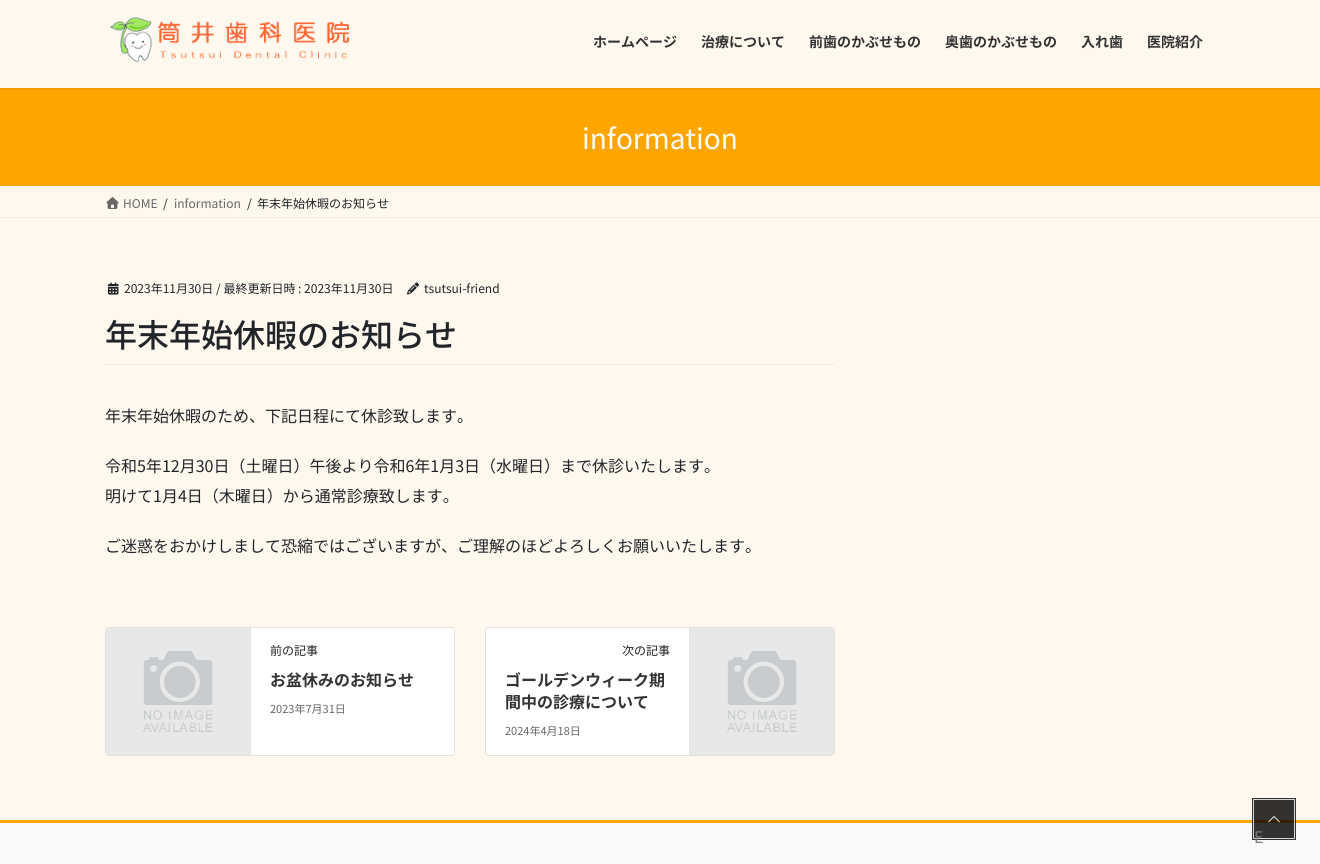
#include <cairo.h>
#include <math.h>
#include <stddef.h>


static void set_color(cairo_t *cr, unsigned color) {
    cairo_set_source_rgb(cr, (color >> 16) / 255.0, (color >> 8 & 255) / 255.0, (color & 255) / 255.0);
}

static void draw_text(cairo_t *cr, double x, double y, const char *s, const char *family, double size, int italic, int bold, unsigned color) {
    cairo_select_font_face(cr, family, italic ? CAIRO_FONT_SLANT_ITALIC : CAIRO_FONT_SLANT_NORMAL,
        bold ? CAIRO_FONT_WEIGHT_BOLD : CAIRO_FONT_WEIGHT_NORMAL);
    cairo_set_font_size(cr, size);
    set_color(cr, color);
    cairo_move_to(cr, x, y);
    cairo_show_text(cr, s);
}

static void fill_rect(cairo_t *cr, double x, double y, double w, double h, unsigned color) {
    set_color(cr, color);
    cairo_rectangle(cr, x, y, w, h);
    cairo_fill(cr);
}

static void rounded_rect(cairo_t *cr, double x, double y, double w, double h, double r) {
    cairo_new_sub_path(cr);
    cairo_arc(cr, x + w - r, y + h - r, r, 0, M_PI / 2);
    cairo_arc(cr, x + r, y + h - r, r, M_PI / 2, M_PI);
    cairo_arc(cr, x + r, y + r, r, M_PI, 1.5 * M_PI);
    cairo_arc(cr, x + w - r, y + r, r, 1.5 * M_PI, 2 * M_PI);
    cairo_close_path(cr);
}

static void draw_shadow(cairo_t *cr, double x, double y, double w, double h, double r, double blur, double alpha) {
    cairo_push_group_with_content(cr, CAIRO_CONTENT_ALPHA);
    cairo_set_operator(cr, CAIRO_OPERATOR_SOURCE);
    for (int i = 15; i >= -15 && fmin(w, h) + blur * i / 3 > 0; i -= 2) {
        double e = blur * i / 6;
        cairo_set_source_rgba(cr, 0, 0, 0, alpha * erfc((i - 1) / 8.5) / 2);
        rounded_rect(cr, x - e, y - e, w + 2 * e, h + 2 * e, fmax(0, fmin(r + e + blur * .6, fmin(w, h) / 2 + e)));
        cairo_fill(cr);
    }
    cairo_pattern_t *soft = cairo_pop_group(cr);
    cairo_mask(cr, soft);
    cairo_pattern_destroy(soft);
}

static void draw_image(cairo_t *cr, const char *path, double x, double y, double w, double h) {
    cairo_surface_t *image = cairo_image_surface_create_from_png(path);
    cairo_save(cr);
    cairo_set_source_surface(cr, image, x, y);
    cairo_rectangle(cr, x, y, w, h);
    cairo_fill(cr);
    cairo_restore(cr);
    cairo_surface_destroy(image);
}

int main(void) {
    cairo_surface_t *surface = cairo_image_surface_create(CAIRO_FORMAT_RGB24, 1320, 864);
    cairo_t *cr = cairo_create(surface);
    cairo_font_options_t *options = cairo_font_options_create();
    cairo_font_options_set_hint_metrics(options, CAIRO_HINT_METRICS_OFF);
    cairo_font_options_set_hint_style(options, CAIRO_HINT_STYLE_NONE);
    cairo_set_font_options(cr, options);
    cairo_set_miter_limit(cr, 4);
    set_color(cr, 0xFFF8EE);
    cairo_paint(cr);
    fill_rect(cr, 1254, 800, 40, 20, 0x333230);
    fill_rect(cr, 0, 88, 1320, 98, 0xFFA500);
    cairo_save(cr);
    cairo_rectangle(cr, 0, 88, 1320, 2);
    cairo_clip(cr);
    set_color(cr, 0x000000);
    draw_shadow(cr, 0, -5, 1320, 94, 0, 1.5, 0.1);
    cairo_restore(cr);
    draw_image(cr, "assets/img1.png", 109, 17, 240, 46);
    draw_text(cr, 593, 47, "ホームページ", "Noto Sans JP", 14, 0, 1, 0x333333);
    draw_text(cr, 701, 47, "治療について", "Noto Sans JP", 14, 0, 1, 0x333333);
    draw_text(cr, 809, 47, "前歯のかぶせもの", "Noto Sans JP", 14, 0, 1, 0x333333);
    draw_text(cr, 945, 47, "奥歯のかぶせもの", "Noto Sans JP", 14, 0, 1, 0x333333);
    draw_text(cr, 1081, 47, "入れ歯", "Noto Sans JP", 14, 0, 1, 0x333333);
    draw_text(cr, 1147, 47, "医院紹介", "Noto Sans JP", 14, 0, 1, 0x333333);
    draw_text(cr, 582, 149, "information", "Noto Sans JP", 28, 0, 0, 0xFFFFFF);
    fill_rect(cr, 0, 217, 1320, 1, 0xF2ECE2);
    draw_image(cr, "assets/img2.png", 106, 197, 13, 12);
    draw_text(cr, 123, 208, "HOME", "Noto Sans JP", 12, 0, 0, 0x666666);
    draw_text(cr, 163, 208, "/", "Noto Sans JP", 12, 0, 0, 0x212529);
    draw_text(cr, 174, 208, "information", "Noto Sans JP", 12, 0, 0, 0x666666);
    draw_text(cr, 247, 208, "/", "Noto Sans JP", 12, 0, 0, 0x212529);
    draw_text(cr, 257, 208, "年末年始休暇のお知らせ", "Noto Sans JP", 12, 0, 0, 0x212529);
    fill_rect(cr, 105, 364, 730, 1, 0xF2ECE2);
    draw_image(cr, "assets/img3.png", 108, 282, 11, 13);
    draw_text(cr, 124, 293, "2023年11月30日", "Noto Sans JP", 12, 0, 0, 0x212529);
    draw_text(cr, 216, 293, "/ 最終更新日時 : 2023年11月30日", "Noto Sans JP", 12, 0, 0, 0x212529);
    draw_image(cr, "assets/img4.png", 407, 282, 12, 13);
    draw_text(cr, 424, 293, "tsutsui-friend", "Noto Sans JP", 12, 0, 0, 0x212529);
    draw_text(cr, 105, 347, "年末年始休暇のお知らせ", "Noto Sans JP Medium", 32, 0, 0, 0x212529);
    draw_text(cr, 105, 422, "年末年始休暇のため、下記日程にて休診致します。", "Noto Sans JP", 16, 0, 0, 0x212529);
    draw_text(cr, 105, 472, "令和5年12月30日（土曜日）午後より令和6年1月3日（水曜日）まで休診いたします。", "Noto Sans JP", 16, 0, 0, 0x212529);
    draw_text(cr, 105, 502, "明けて1月4日（木曜日）から通常診療致します。", "Noto Sans JP", 16, 0, 0, 0x212529);
    draw_text(cr, 105, 552, "ご迷惑をおかけしまして恐縮ではございますが、ご理解のほどよろしくお願いいたします。", "Noto Sans JP", 16, 0, 0, 0x212529);
    set_color(cr, 0xFFFFFF);
    rounded_rect(cr, 105, 627, 350, 129, 4);
    cairo_fill(cr);
    rounded_rect(cr, 105.5, 627.5, 349, 128, 3.5);
    cairo_set_source_rgba(cr, 0, 0, 0, 0.12);
    cairo_set_line_width(cr, 1);
    cairo_stroke(cr);
    draw_image(cr, "assets/img5.png", 106, 628, 144, 127);
    fill_rect(cr, 250, 628, 1, 127, 0xE5E5E5);
    draw_text(cr, 270, 655, "前の記事", "Noto Sans JP", 12, 0, 0, 0x212529);
    draw_text(cr, 270, 686, "お盆休みのお知らせ", "Noto Sans JP", 16, 0, 1, 0x333333);
    draw_text(cr, 270, 713, "2023年7月31日", "Noto Sans JP", 11, 0, 0, 0x666666);
    set_color(cr, 0xFFFFFF);
    rounded_rect(cr, 485, 627, 350, 129, 4);
    cairo_fill(cr);
    rounded_rect(cr, 485.5, 627.5, 349, 128, 3.5);
    cairo_set_source_rgba(cr, 0, 0, 0, 0.12);
    cairo_stroke(cr);
    draw_text(cr, 622, 655, "次の記事", "Noto Sans JP", 12, 0, 0, 0x212529);
    draw_text(cr, 505, 686, "ゴールデンウィーク期", "Noto Sans JP", 16, 0, 1, 0x333333);
    draw_text(cr, 505, 708, "間中の診療について", "Noto Sans JP", 16, 0, 1, 0x333333);
    draw_text(cr, 505, 735, "2024年4月18日", "Noto Sans JP", 11, 0, 0, 0x666666);
    draw_image(cr, "assets/img6.png", 690, 628, 144, 127);
    fill_rect(cr, 689, 628, 1, 127, 0xE5E5E5);
    fill_rect(cr, 0, 823, 1320, 41, 0xF9F9F9);
    fill_rect(cr, 1254, 823, 40, 15, 0x323232);
    fill_rect(cr, 0, 820, 1320, 3, 0xFFA500);
    fill_rect(cr, 1254, 820, 40, 3, 0x332100);
    cairo_rectangle(cr, 1253, 799, 42, 40);
    cairo_set_source_rgba(cr, 0, 0, 0, 0.8);
    cairo_set_line_width(cr, 2);
    cairo_stroke(cr);
    cairo_rectangle(cr, 1253.5, 799.5, 41, 39);
    cairo_set_source_rgba(cr, 1, 1, 1, 0.8);
    cairo_set_line_width(cr, 1);
    cairo_stroke(cr);
    draw_image(cr, "assets/img7.png", 1268, 816, 12, 7);
    draw_text(cr, 1254, 843, "E", "Noto Sans JP", 16, 0, 0, 0x787878);
    cairo_surface_write_to_png(surface, "output.png");
    cairo_font_options_destroy(options);
    cairo_destroy(cr);
    cairo_surface_destroy(surface);
    return 0;
}
